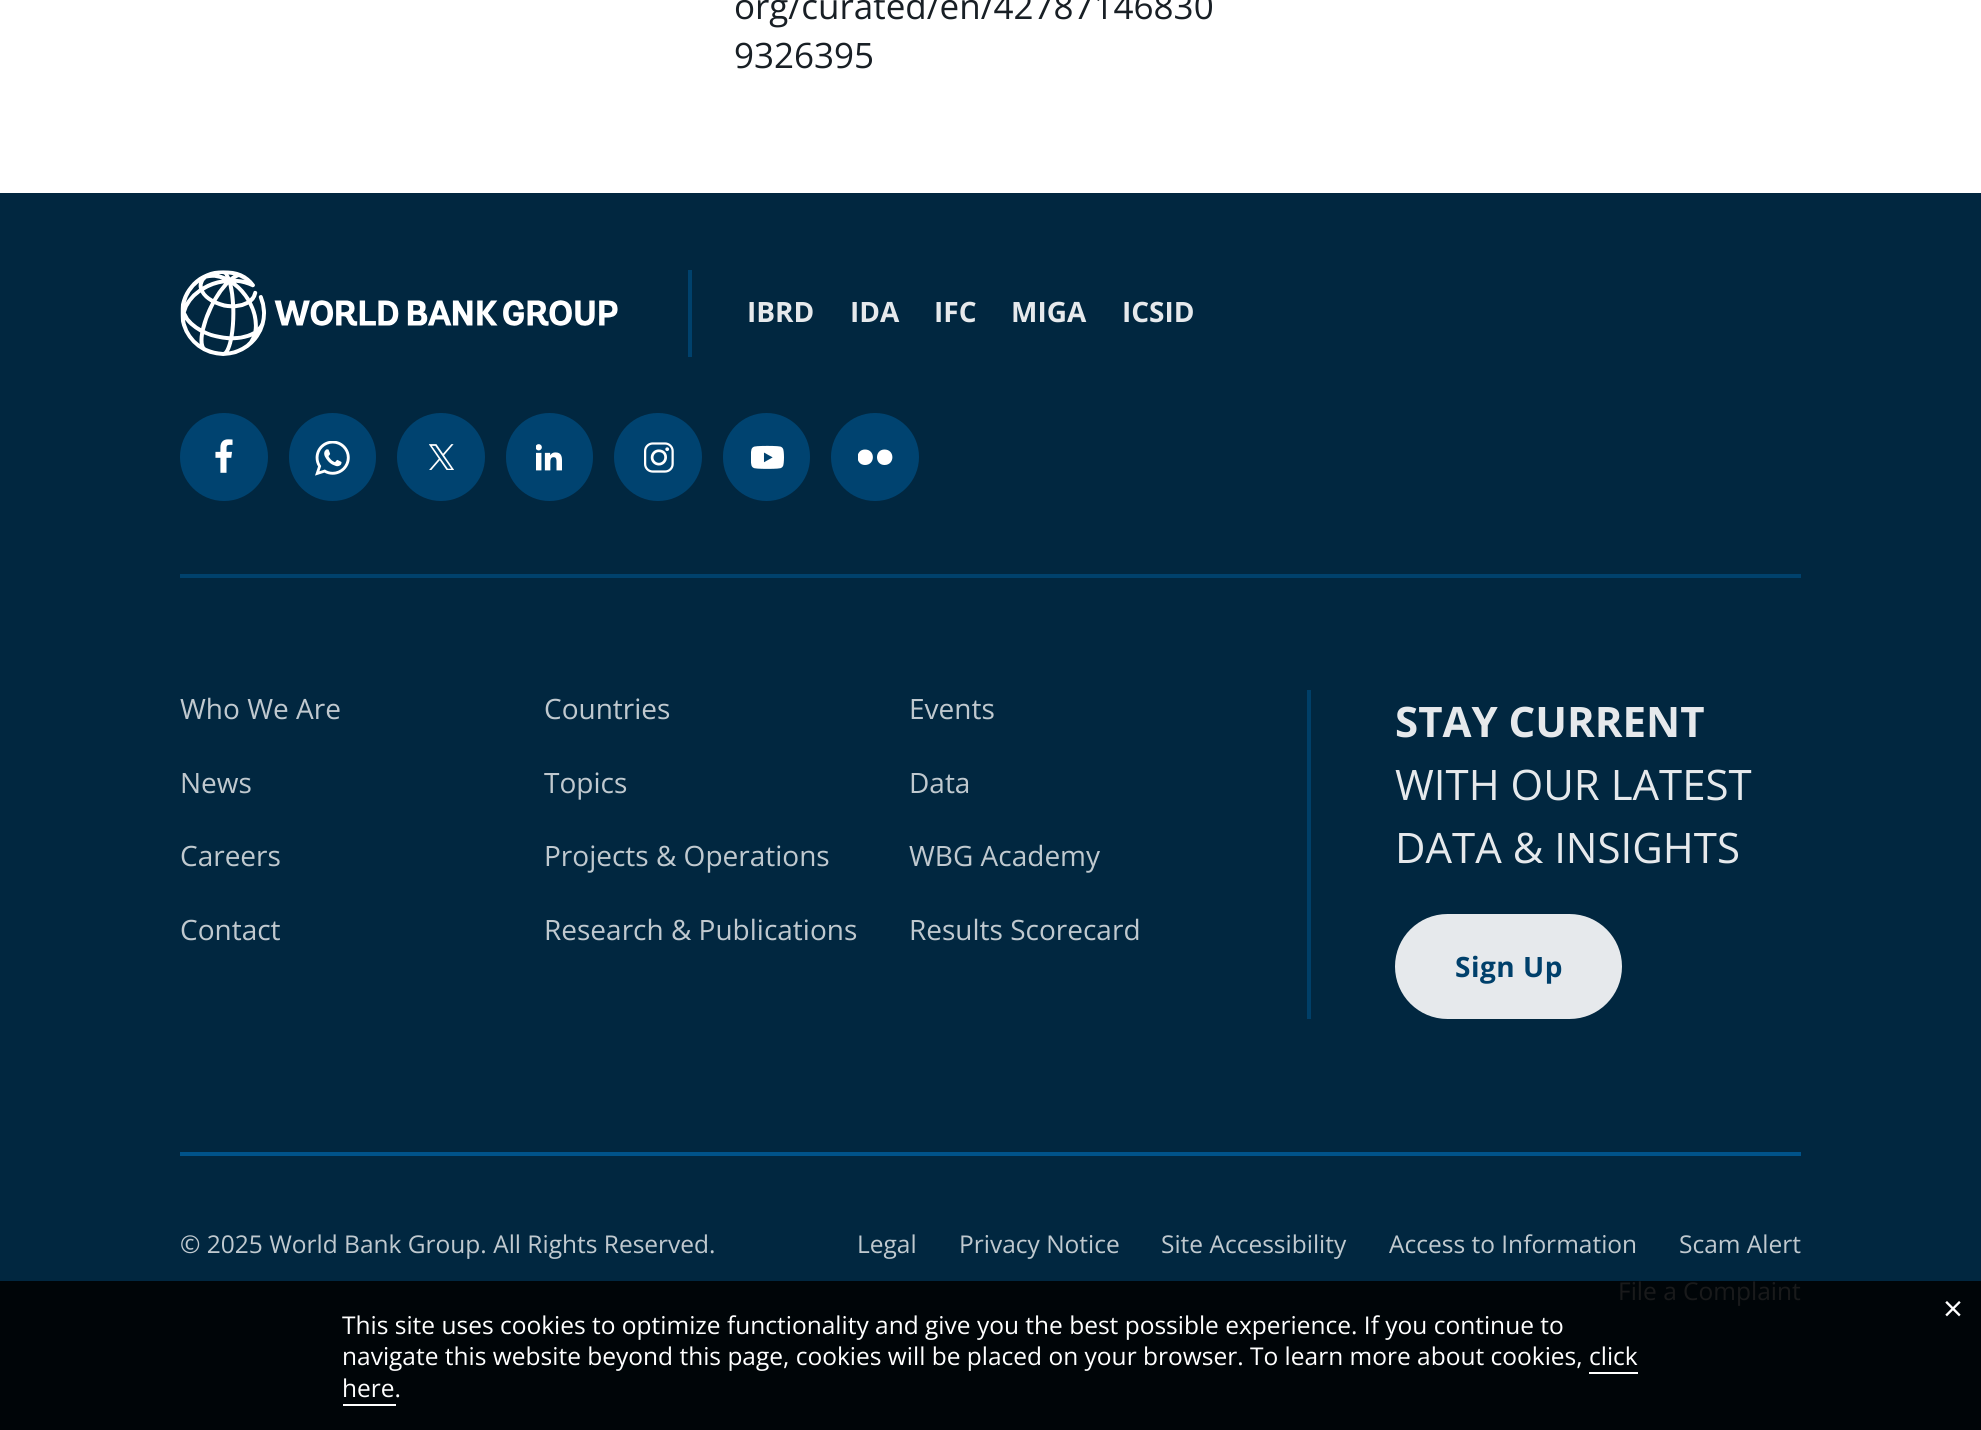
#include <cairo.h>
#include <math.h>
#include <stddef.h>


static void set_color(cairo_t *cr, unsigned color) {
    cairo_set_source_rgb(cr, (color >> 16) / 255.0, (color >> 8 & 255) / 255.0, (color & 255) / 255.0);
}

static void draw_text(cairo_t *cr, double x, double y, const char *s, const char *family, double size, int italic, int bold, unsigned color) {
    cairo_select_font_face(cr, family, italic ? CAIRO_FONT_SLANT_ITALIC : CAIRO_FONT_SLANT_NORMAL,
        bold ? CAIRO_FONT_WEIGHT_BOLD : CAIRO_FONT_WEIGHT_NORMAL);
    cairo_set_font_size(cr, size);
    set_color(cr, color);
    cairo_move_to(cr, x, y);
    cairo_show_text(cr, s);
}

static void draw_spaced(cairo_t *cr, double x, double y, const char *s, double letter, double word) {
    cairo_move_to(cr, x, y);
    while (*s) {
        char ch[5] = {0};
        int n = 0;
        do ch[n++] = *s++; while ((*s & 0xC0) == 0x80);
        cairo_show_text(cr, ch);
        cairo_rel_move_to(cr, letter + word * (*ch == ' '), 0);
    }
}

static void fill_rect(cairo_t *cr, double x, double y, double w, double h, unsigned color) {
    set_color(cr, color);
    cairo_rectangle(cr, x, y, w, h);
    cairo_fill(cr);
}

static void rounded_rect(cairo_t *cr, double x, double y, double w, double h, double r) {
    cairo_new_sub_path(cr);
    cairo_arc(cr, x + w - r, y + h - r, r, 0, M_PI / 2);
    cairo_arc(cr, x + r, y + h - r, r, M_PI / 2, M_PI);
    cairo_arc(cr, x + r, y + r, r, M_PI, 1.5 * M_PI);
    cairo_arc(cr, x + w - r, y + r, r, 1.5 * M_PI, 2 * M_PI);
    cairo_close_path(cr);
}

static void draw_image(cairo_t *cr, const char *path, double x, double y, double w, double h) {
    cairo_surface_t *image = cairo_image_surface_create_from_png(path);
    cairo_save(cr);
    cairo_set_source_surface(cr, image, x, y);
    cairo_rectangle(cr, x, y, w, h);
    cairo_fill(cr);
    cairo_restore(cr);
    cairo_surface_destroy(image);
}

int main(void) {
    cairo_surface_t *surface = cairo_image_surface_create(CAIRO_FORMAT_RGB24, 1981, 1430);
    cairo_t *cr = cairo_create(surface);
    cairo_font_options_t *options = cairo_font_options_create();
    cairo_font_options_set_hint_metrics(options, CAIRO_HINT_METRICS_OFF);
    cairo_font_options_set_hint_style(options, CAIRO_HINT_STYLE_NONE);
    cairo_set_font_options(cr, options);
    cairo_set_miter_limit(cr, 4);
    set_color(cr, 0xFFFFFF);
    cairo_paint(cr);
    draw_text(cr, 734, 19, "org/curated/en/42787146830", "Open Sans", 35, 0, 0, 0x181F25);
    draw_text(cr, 734, 68, "9326395", "Open Sans", 35, 0, 0, 0x181F25);
    fill_rect(cr, 0, 193, 1981, 1088, 0x012740);
    fill_rect(cr, 0, 1281, 1981, 149, 0x000508);
    fill_rect(cr, 180, 574, 1621, 4, 0x00416C);
    fill_rect(cr, 688, 270, 4, 87, 0x00416C);
    draw_image(cr, "assets/img1.png", 180, 270, 438, 86);
    draw_text(cr, 747, 322, "IBRD", "Open Sans", 28, 0, 1, 0xE6E9EC);
    draw_text(cr, 850, 322, "IDA", "Open Sans", 28, 0, 1, 0xE6E9EC);
    draw_text(cr, 934, 322, "IFC", "Open Sans", 28, 0, 1, 0xE6E9EC);
    draw_text(cr, 1011, 322, "MIGA", "Open Sans", 28, 0, 1, 0xE6E9EC);
    draw_text(cr, 1122, 322, "ICSID", "Open Sans", 28, 0, 1, 0xE6E9EC);
    set_color(cr, 0x004370);
    cairo_new_path(cr);
    cairo_arc(cr, 224, 457, 44, 0, 2 * M_PI);
    cairo_fill(cr);
    draw_image(cr, "assets/img2.png", 215, 439, 18, 34);
    rounded_rect(cr, 289, 413, 87, 88, 43.5);
    cairo_fill(cr);
    draw_image(cr, "assets/img3.png", 315, 441, 35, 35);
    cairo_arc(cr, 441, 457, 44, 0, 2 * M_PI);
    cairo_fill(cr);
    draw_image(cr, "assets/img4.png", 429, 444, 25, 26);
    rounded_rect(cr, 506, 413, 87, 88, 43.5);
    cairo_fill(cr);
    draw_image(cr, "assets/img5.png", 536, 444, 26, 27);
    cairo_arc(cr, 658, 457, 44, 0, 2 * M_PI);
    cairo_fill(cr);
    draw_image(cr, "assets/img6.png", 644, 442, 30, 31);
    rounded_rect(cr, 723, 413, 87, 88, 43.5);
    cairo_fill(cr);
    draw_image(cr, "assets/img7.png", 751, 445, 33, 24);
    cairo_arc(cr, 875, 457, 44, 0, 2 * M_PI);
    cairo_fill(cr);
    cairo_save(cr);
    cairo_rectangle(cr, 858, 448, 35, 18);
    cairo_clip(cr);
    set_color(cr, 0xFFFFFF);
    cairo_new_path(cr);
    cairo_move_to(cr, 865, 449.5);
    cairo_curve_to(cr, 855, 449.5, 855, 465, 865, 465);
    cairo_curve_to(cr, 875.5, 465, 875.5, 449.5, 865, 449.5);
    cairo_close_path(cr);
    cairo_move_to(cr, 884.5, 449.5);
    cairo_curve_to(cr, 874.5, 449.5, 874.5, 465, 884.5, 465);
    cairo_curve_to(cr, 895, 465, 895, 449.5, 884.5, 449.5);
    cairo_close_path(cr);
    cairo_fill(cr);
    cairo_restore(cr);
    draw_text(cr, 180, 719, "Who We Are", "Open Sans", 28, 0, 0, 0xC0C9CF);
    draw_text(cr, 180, 793, "News", "Open Sans", 28, 0, 0, 0xC0C9CF);
    draw_text(cr, 180, 866, "Careers", "Open Sans", 28, 0, 0, 0xC0C9CF);
    draw_text(cr, 180, 940, "Contact", "Open Sans", 28, 0, 0, 0xC0C9CF);
    draw_text(cr, 544, 719, "Countries", "Open Sans", 28, 0, 0, 0xC0C9CF);
    draw_text(cr, 544, 793, "Topics", "Open Sans", 28, 0, 0, 0xC0C9CF);
    draw_text(cr, 544, 866, "Projects & Operations", "Open Sans", 28, 0, 0, 0xC0C9CF);
    draw_text(cr, 544, 940, "Research & Publications", "Open Sans", 28, 0, 0, 0xC0C9CF);
    draw_text(cr, 909, 719, "Events", "Open Sans", 28, 0, 0, 0xC0C9CF);
    draw_text(cr, 909, 793, "Data", "Open Sans", 28, 0, 0, 0xC0C9CF);
    draw_text(cr, 909, 866, "WBG Academy", "Open Sans", 28, 0, 0, 0xC0C9CF);
    draw_text(cr, 909, 940, "Results Scorecard", "Open Sans", 28, 0, 0, 0xC0C9CF);
    fill_rect(cr, 1307, 690, 4, 329, 0x003F68);
    draw_text(cr, 1395, 737, "STAY CURRENT", "Open Sans", 42, 0, 1, 0xE6E9EC);
    draw_text(cr, 1395, 800, "WITH OUR LATEST", "Open Sans", 42, 0, 0, 0xE6E9EC);
    draw_text(cr, 1395, 863, "DATA & INSIGHTS", "Open Sans", 42, 0, 0, 0xE6E9EC);
    rounded_rect(cr, 1395, 914, 227, 105, 52.5);
    cairo_fill(cr);
    cairo_select_font_face(cr, "Open Sans", CAIRO_FONT_SLANT_NORMAL, CAIRO_FONT_WEIGHT_BOLD);
    cairo_set_font_size(cr, 28);
    set_color(cr, 0x00406B);
    draw_spaced(cr, 1455, 977, "Sign Up", 0.5, 0);
    fill_rect(cr, 180, 1152, 1621, 4, 0x00538A);
    draw_text(cr, 180, 1253, "© 2025 World Bank Group. All Rights Reserved.", "Open Sans", 24.5, 0, 0, 0xC0C9CF);
    draw_text(cr, 857, 1253, "Legal", "Open Sans", 24.5, 0, 0, 0xC0C9CF);
    draw_text(cr, 959, 1253, "Privacy Notice", "Open Sans", 24.5, 0, 0, 0xC0C9CF);
    draw_text(cr, 1161, 1253, "Site Accessibility", "Open Sans", 24.5, 0, 0, 0xC0C9CF);
    draw_text(cr, 1389, 1253, "Access to Information", "Open Sans", 24.5, 0, 0, 0xC0C9CF);
    draw_text(cr, 1679, 1253, "Scam Alert", "Open Sans", 24.5, 0, 0, 0xC0C9CF);
    draw_text(cr, 1618, 1300, "File a Complaint", "Open Sans", 24.5, 0, 0, 0x191A1B);
    draw_text(cr, 1943, 1321, "×", "Open Sans", 35, 0, 0, 0xFFFFFF);
    draw_text(cr, 342, 1334, "This site uses cookies to optimize functionality and give you the best possible experience. If you continue to", "Open Sans", 24.5, 0, 0, 0xFFFFFF);
    draw_text(cr, 342, 1365, "navigate this website beyond this page, cookies will be placed on your browser. To learn more about cookies, click", "Open Sans", 24.5, 0, 0, 0xFFFFFF);
    draw_text(cr, 342, 1397, "here.", "Open Sans", 24.5, 0, 0, 0xFFFFFF);
    fill_rect(cr, 1589, 1372, 49, 2, 0xFFFFFF);
    fill_rect(cr, 343, 1404, 53, 2, 0xFFFFFF);
    cairo_surface_write_to_png(surface, "output.png");
    cairo_font_options_destroy(options);
    cairo_destroy(cr);
    cairo_surface_destroy(surface);
    return 0;
}
